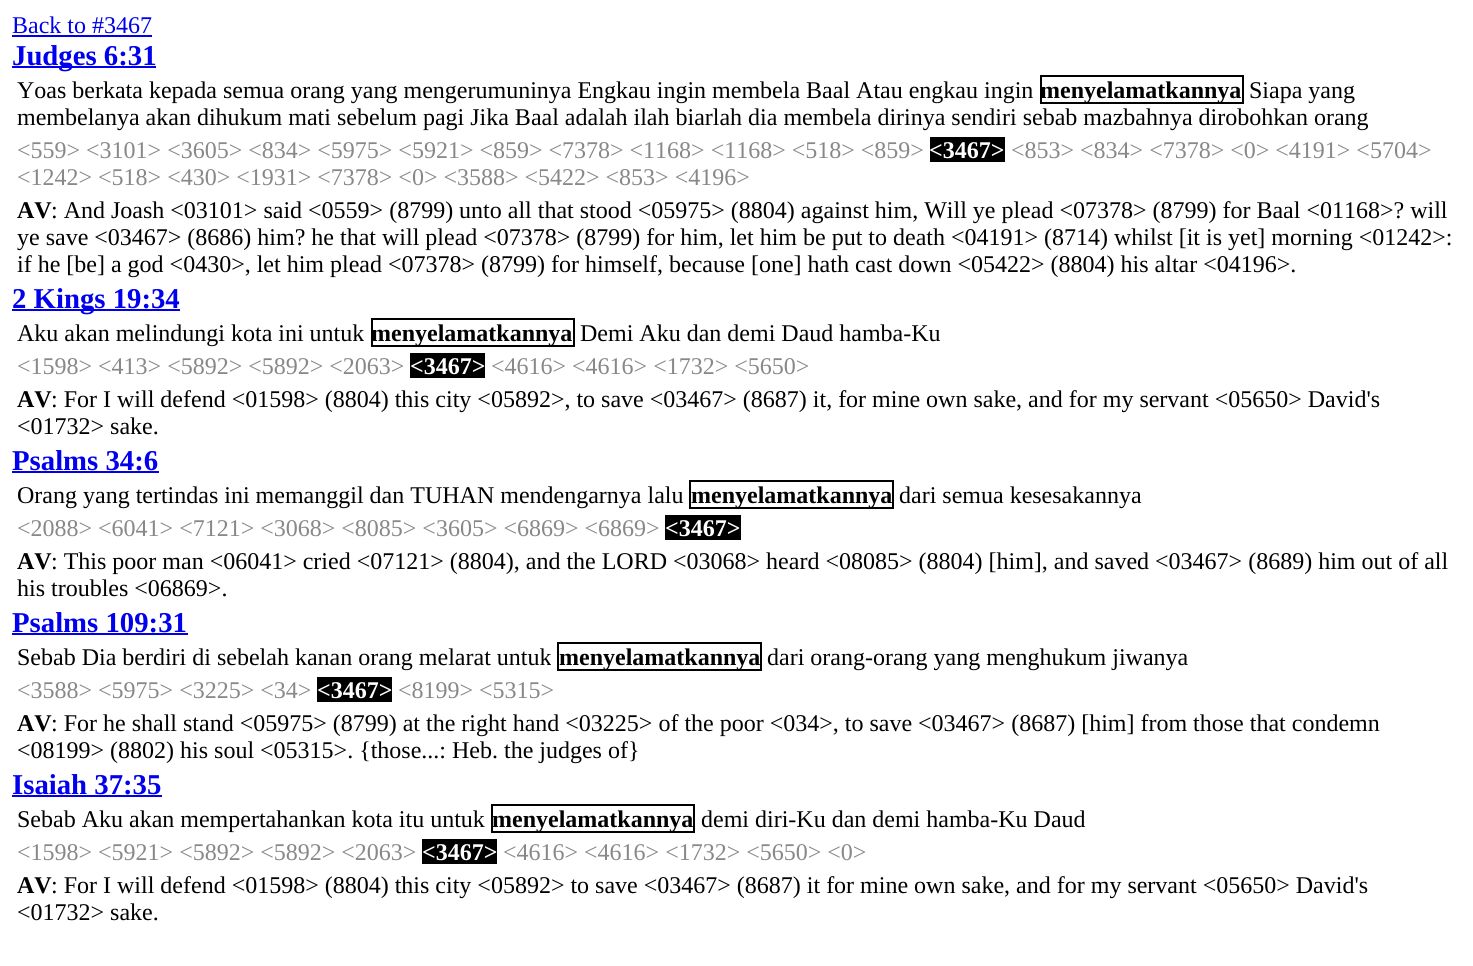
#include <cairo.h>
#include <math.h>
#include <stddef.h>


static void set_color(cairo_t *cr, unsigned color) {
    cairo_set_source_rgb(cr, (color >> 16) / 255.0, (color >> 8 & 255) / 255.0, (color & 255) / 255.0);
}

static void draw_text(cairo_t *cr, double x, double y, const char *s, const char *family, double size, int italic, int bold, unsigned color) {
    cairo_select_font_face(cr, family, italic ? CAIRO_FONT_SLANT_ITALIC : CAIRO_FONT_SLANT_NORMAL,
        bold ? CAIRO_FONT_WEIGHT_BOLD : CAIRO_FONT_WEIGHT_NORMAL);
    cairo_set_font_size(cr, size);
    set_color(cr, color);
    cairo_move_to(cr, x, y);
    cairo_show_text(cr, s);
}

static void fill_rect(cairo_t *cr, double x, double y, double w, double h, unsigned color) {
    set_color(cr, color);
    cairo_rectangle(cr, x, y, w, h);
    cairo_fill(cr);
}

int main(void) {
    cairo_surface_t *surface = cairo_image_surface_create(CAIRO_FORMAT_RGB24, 1473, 966);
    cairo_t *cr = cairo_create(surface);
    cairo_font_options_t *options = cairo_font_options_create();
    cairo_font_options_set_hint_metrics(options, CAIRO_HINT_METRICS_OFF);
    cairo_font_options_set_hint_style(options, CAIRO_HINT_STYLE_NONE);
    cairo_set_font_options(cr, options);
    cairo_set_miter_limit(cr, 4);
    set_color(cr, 0xFFFFFF);
    cairo_paint(cr);
    draw_text(cr, 12, 33, "Back to #3467", "Liberation Serif", 24, 0, 0, 0x0000EE);
    fill_rect(cr, 12, 35, 140, 2, 0x0000EE);
    fill_rect(cr, 12, 66, 144, 2, 0x0000EE);
    draw_text(cr, 12, 65, "Judges 6:31", "Liberation Serif", 28.75, 0, 1, 0x0000EE);
    draw_text(cr, 17, 98, "Yoas berkata kepada semua orang yang mengerumuninya Engkau ingin membela Baal Atau engkau ingin", "Liberation Serif", 24, 0, 0, 0x000000);
    cairo_rectangle(cr, 1041, 76, 202, 27);
    cairo_stroke(cr);
    draw_text(cr, 1040, 98, "menyelamatkannya", "Liberation Serif", 24, 0, 1, 0x000000);
    draw_text(cr, 1249, 98, "Siapa yang", "Liberation Serif", 24, 0, 0, 0x000000);
    draw_text(cr, 17, 125, "membelanya akan dihukum mati sebelum pagi Jika Baal adalah ilah biarlah dia membela dirinya sendiri sebab mazbahnya dirobohkan orang", "Liberation Serif", 24, 0, 0, 0x000000);
    draw_text(cr, 17, 158, "<559> <3101> <3605> <834> <5975> <5921> <859> <7378> <1168> <1168> <518> <859>", "Liberation Serif", 24, 0, 0, 0x888888);
    fill_rect(cr, 930, 137, 75, 25, 0x000000);
    draw_text(cr, 929, 158, "<3467>", "Liberation Serif", 24, 0, 1, 0xFFFFFF);
    draw_text(cr, 1011, 158, "<853> <834> <7378> <0> <4191> <5704>", "Liberation Serif", 24, 0, 0, 0x888888);
    draw_text(cr, 17, 185, "<1242> <518> <430> <1931> <7378> <0> <3588> <5422> <853> <4196>", "Liberation Serif", 24, 0, 0, 0x888888);
    draw_text(cr, 17, 218, "AV", "Liberation Serif", 24, 0, 1, 0x000000);
    draw_text(cr, 51, 218, ": And Joash <03101> said <0559> (8799) unto all that stood <05975> (8804) against him, Will ye plead <07378> (8799) for Baal <01168>? will", "Liberation Serif", 24, 0, 0, 0x000000);
    draw_text(cr, 17, 245, "ye save <03467> (8686) him? he that will plead <07378> (8799) for him, let him be put to death <04191> (8714) whilst [it is yet] morning <01242>:", "Liberation Serif", 24, 0, 0, 0x000000);
    draw_text(cr, 17, 272, "if he [be] a god <0430>, let him plead <07378> (8799) for himself, because [one] hath cast down <05422> (8804) his altar <04196>.", "Liberation Serif", 24, 0, 0, 0x000000);
    fill_rect(cr, 12, 309, 168, 2, 0x0000EE);
    draw_text(cr, 12, 308, "2 Kings 19:34", "Liberation Serif", 28.75, 0, 1, 0x0000EE);
    draw_text(cr, 17, 341, "Aku akan melindungi kota ini untuk", "Liberation Serif", 24, 0, 0, 0x000000);
    cairo_rectangle(cr, 372, 319, 202, 27);
    cairo_stroke(cr);
    draw_text(cr, 371, 341, "menyelamatkannya", "Liberation Serif", 24, 0, 1, 0x000000);
    draw_text(cr, 580, 341, "Demi Aku dan demi Daud hamba-Ku", "Liberation Serif", 24, 0, 0, 0x000000);
    draw_text(cr, 17, 374, "<1598> <413> <5892> <5892> <2063>", "Liberation Serif", 24, 0, 0, 0x888888);
    fill_rect(cr, 410, 353, 75, 25, 0x000000);
    draw_text(cr, 410, 374, "<3467>", "Liberation Serif", 24, 0, 1, 0xFFFFFF);
    draw_text(cr, 491, 374, "<4616> <4616> <1732> <5650>", "Liberation Serif", 24, 0, 0, 0x888888);
    draw_text(cr, 17, 407, "AV", "Liberation Serif", 24, 0, 1, 0x000000);
    draw_text(cr, 51, 407, ": For I will defend <01598> (8804) this city <05892>, to save <03467> (8687) it, for mine own sake, and for my servant <05650> David's", "Liberation Serif", 24, 0, 0, 0x000000);
    draw_text(cr, 17, 434, "<01732> sake.", "Liberation Serif", 24, 0, 0, 0x000000);
    draw_text(cr, 12, 470, "Psalms 34:6", "Liberation Serif", 28.75, 0, 1, 0x0000EE);
    fill_rect(cr, 12, 471, 147, 2, 0x0000EE);
    draw_text(cr, 17, 503, "Orang yang tertindas ini memanggil dan TUHAN mendengarnya lalu", "Liberation Serif", 24, 0, 0, 0x000000);
    cairo_rectangle(cr, 690, 481, 203, 27);
    cairo_stroke(cr);
    draw_text(cr, 691, 503, "menyelamatkannya", "Liberation Serif", 24, 0, 1, 0x000000);
    draw_text(cr, 899, 503, "dari semua kesesakannya", "Liberation Serif", 24, 0, 0, 0x000000);
    draw_text(cr, 17, 536, "<2088> <6041> <7121> <3068> <8085> <3605> <6869> <6869>", "Liberation Serif", 24, 0, 0, 0x888888);
    fill_rect(cr, 665, 515, 76, 25, 0x000000);
    draw_text(cr, 665, 536, "<3467>", "Liberation Serif", 24, 0, 1, 0xFFFFFF);
    draw_text(cr, 17, 569, "AV", "Liberation Serif", 24, 0, 1, 0x000000);
    draw_text(cr, 51, 569, ": This poor man <06041> cried <07121> (8804), and the LORD <03068> heard <08085> (8804) [him], and saved <03467> (8689) him out of all", "Liberation Serif", 24, 0, 0, 0x000000);
    draw_text(cr, 17, 596, "his troubles <06869>.", "Liberation Serif", 24, 0, 0, 0x000000);
    draw_text(cr, 12, 632, "Psalms 109:31", "Liberation Serif", 28.75, 0, 1, 0x0000EE);
    fill_rect(cr, 12, 633, 176, 2, 0x0000EE);
    draw_text(cr, 17, 665, "Sebab Dia berdiri di sebelah kanan orang melarat untuk", "Liberation Serif", 24, 0, 0, 0x000000);
    cairo_rectangle(cr, 558, 643, 203, 27);
    cairo_stroke(cr);
    draw_text(cr, 559, 665, "menyelamatkannya", "Liberation Serif", 24, 0, 1, 0x000000);
    draw_text(cr, 767, 665, "dari orang-orang yang menghukum jiwanya", "Liberation Serif", 24, 0, 0, 0x000000);
    draw_text(cr, 17, 698, "<3588> <5975> <3225> <34>", "Liberation Serif", 24, 0, 0, 0x888888);
    fill_rect(cr, 317, 677, 75, 25, 0x000000);
    draw_text(cr, 317, 698, "<3467>", "Liberation Serif", 24, 0, 1, 0xFFFFFF);
    draw_text(cr, 398, 698, "<8199> <5315>", "Liberation Serif", 24, 0, 0, 0x888888);
    draw_text(cr, 17, 731, "AV", "Liberation Serif", 24, 0, 1, 0x000000);
    draw_text(cr, 51, 731, ": For he shall stand <05975> (8799) at the right hand <03225> of the poor <034>, to save <03467> (8687) [him] from those that condemn", "Liberation Serif", 24, 0, 0, 0x000000);
    draw_text(cr, 17, 758, "<08199> (8802) his soul <05315>. {those...: Heb. the judges of}", "Liberation Serif", 24, 0, 0, 0x000000);
    draw_text(cr, 12, 794, "Isaiah 37:35", "Liberation Serif", 28.75, 0, 1, 0x0000EE);
    fill_rect(cr, 12, 795, 150, 2, 0x0000EE);
    draw_text(cr, 17, 827, "Sebab Aku akan mempertahankan kota itu untuk", "Liberation Serif", 24, 0, 0, 0x000000);
    cairo_rectangle(cr, 492, 805, 202, 27);
    cairo_stroke(cr);
    draw_text(cr, 492, 827, "menyelamatkannya", "Liberation Serif", 24, 0, 1, 0x000000);
    draw_text(cr, 701, 827, "demi diri-Ku dan demi hamba-Ku Daud", "Liberation Serif", 24, 0, 0, 0x000000);
    draw_text(cr, 17, 860, "<1598> <5921> <5892> <5892> <2063>", "Liberation Serif", 24, 0, 0, 0x888888);
    fill_rect(cr, 422, 839, 75, 25, 0x000000);
    draw_text(cr, 422, 860, "<3467>", "Liberation Serif", 24, 0, 1, 0xFFFFFF);
    draw_text(cr, 503, 860, "<4616> <4616> <1732> <5650> <0>", "Liberation Serif", 24, 0, 0, 0x888888);
    draw_text(cr, 17, 893, "AV", "Liberation Serif", 24, 0, 1, 0x000000);
    draw_text(cr, 51, 893, ": For I will defend <01598> (8804) this city <05892> to save <03467> (8687) it for mine own sake, and for my servant <05650> David's", "Liberation Serif", 24, 0, 0, 0x000000);
    draw_text(cr, 17, 920, "<01732> sake.", "Liberation Serif", 24, 0, 0, 0x000000);
    cairo_surface_write_to_png(surface, "output.png");
    cairo_font_options_destroy(options);
    cairo_destroy(cr);
    cairo_surface_destroy(surface);
    return 0;
}
